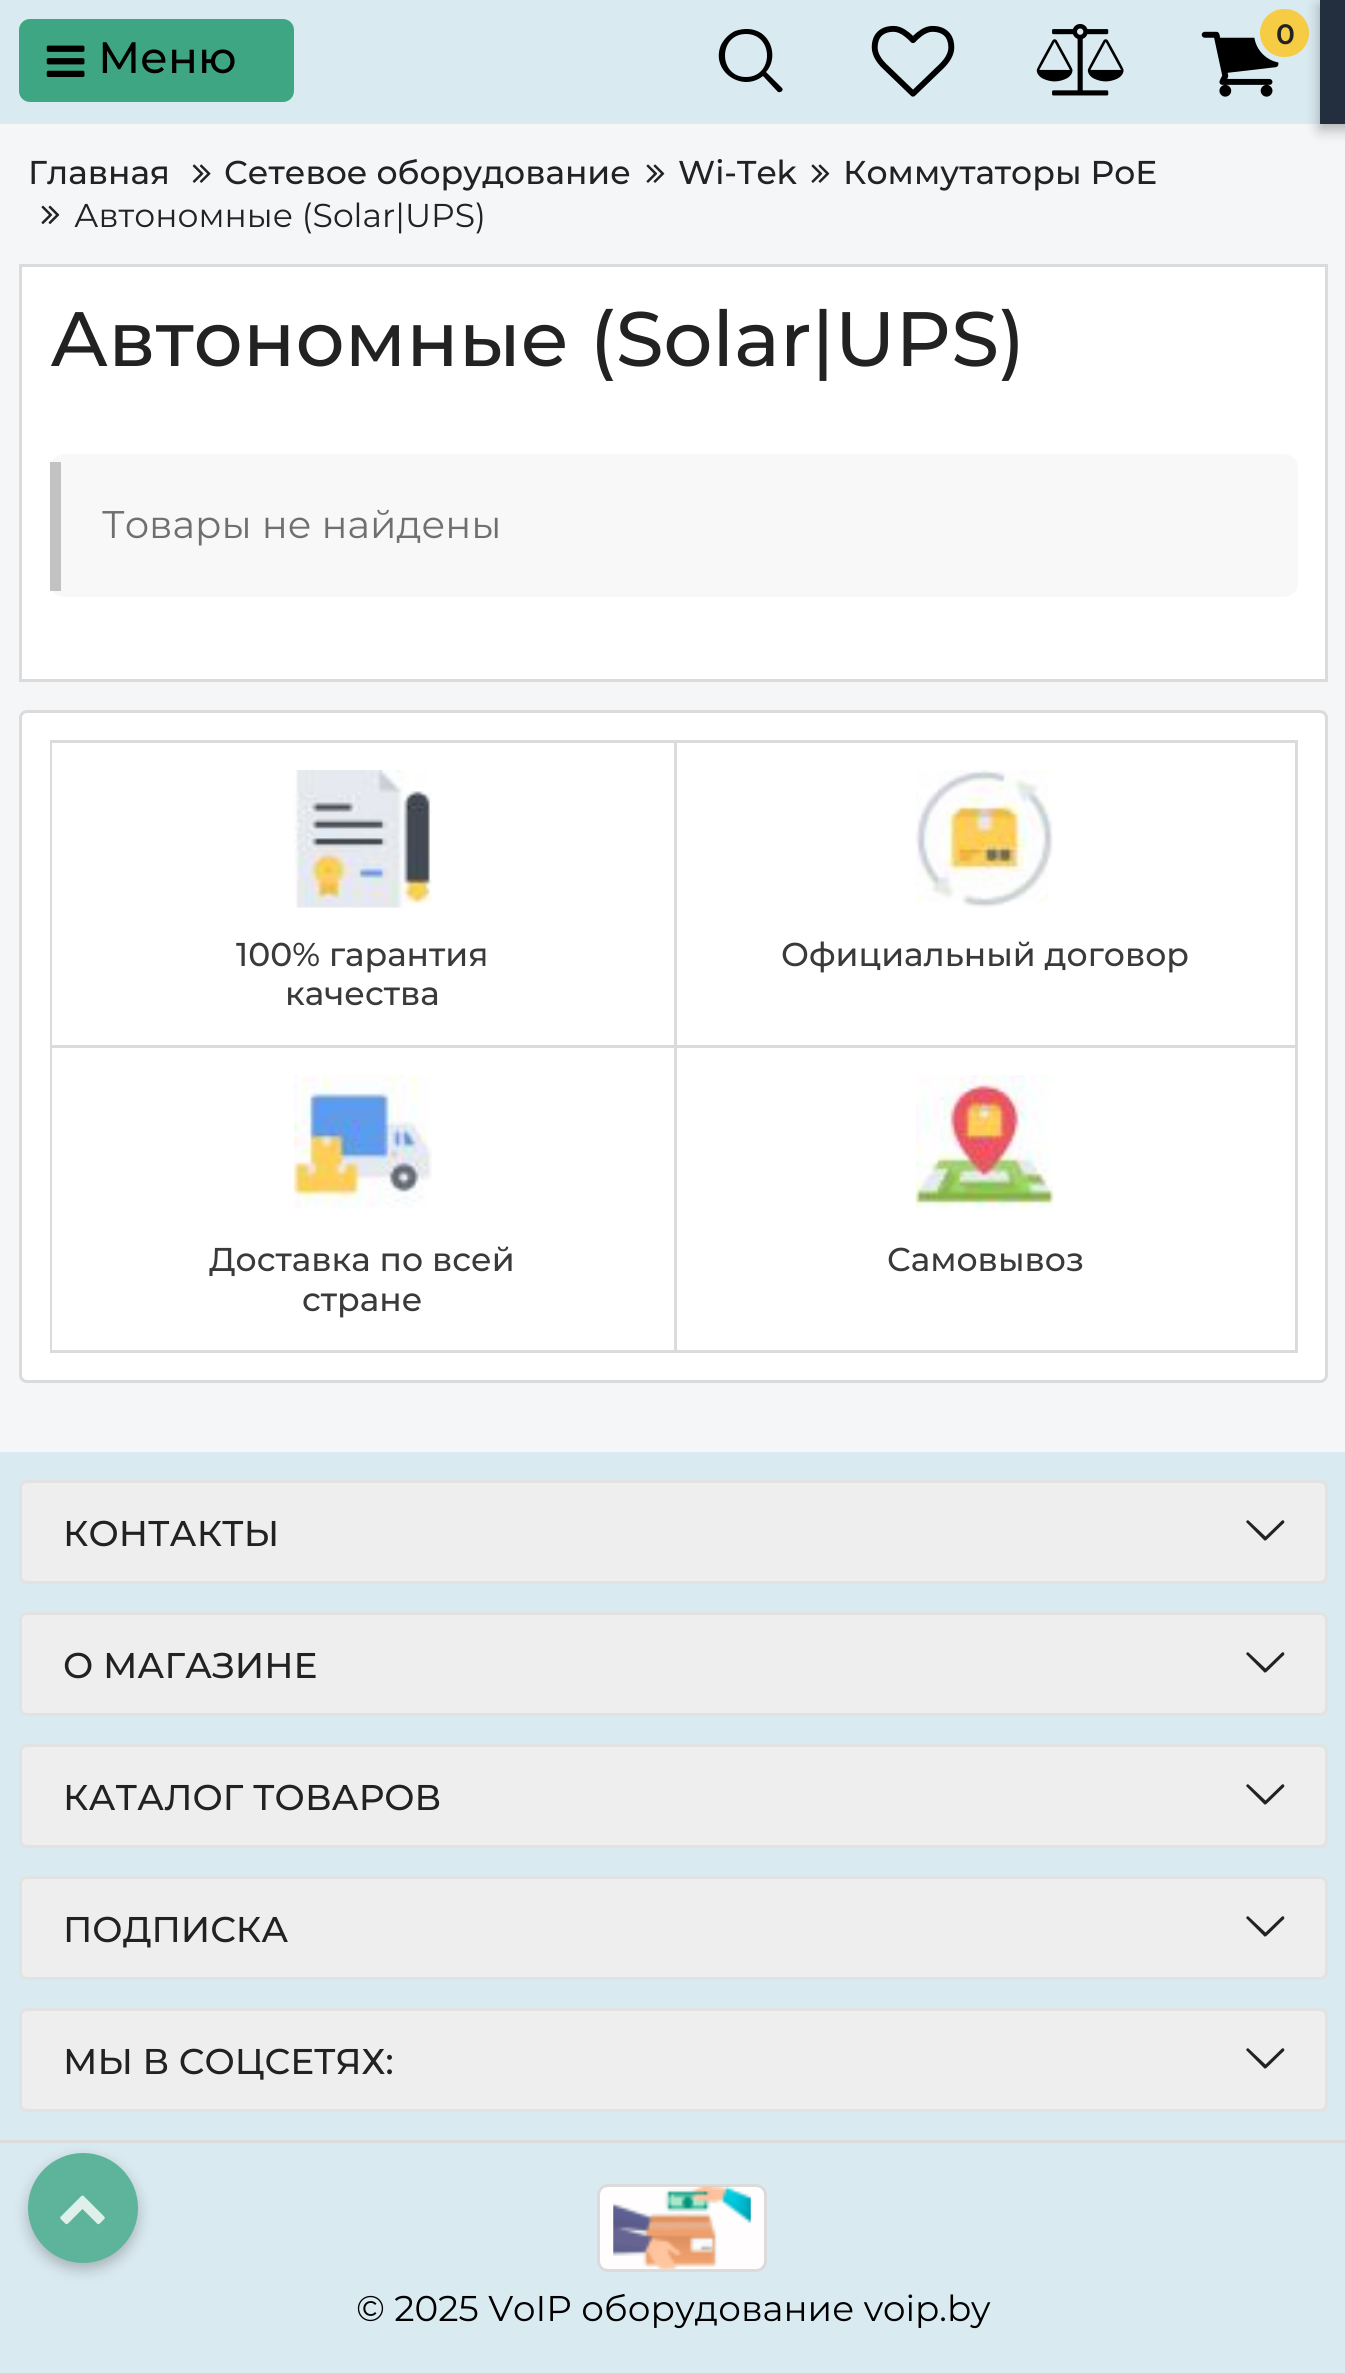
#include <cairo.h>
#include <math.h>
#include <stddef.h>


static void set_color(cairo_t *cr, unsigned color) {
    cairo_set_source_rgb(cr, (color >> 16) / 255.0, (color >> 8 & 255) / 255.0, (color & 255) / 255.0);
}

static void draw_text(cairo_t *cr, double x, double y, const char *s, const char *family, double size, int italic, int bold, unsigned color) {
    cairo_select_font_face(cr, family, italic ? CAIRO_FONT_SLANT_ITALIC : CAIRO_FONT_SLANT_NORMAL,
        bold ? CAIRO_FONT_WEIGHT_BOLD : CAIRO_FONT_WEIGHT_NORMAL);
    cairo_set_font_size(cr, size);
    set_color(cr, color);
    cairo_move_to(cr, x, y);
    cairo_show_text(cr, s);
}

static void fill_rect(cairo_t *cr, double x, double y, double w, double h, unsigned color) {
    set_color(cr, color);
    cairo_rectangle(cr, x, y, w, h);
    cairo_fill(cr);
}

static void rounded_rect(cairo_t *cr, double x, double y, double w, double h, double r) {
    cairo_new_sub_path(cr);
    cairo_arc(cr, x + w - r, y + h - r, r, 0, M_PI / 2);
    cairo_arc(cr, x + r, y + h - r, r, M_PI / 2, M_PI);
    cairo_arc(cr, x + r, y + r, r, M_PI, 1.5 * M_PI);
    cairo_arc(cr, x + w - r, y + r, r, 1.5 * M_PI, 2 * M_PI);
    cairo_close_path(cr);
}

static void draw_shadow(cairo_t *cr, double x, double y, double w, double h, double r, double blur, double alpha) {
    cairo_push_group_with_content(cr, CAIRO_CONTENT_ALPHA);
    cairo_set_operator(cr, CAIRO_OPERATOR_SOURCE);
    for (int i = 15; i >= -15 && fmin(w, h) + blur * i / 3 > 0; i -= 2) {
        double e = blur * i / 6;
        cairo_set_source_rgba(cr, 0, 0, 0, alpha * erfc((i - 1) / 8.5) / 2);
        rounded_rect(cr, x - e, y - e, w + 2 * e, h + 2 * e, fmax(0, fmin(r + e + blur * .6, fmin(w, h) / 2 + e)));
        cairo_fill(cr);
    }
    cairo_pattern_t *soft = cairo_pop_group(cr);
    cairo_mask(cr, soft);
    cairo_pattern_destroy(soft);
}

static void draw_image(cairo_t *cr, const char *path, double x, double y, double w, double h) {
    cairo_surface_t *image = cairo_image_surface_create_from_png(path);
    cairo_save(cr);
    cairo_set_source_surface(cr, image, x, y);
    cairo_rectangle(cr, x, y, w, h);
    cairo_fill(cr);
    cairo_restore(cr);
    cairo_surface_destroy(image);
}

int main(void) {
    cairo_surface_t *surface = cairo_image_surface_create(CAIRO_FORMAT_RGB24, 1345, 2373);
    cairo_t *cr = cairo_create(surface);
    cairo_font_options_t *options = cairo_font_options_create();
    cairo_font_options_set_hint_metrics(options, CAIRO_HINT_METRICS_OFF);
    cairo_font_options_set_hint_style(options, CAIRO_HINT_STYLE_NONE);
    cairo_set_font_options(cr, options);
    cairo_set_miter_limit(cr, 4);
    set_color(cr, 0xF5F6F7);
    cairo_paint(cr);
    fill_rect(cr, 0, 0, 1320, 124, 0xDAEAF1);
    set_color(cr, 0x000000);
    cairo_new_path(cr);
    cairo_move_to(cr, 782, 88);
    cairo_line_to(cr, 766, 72);
    cairo_curve_to(cr, 776, 61, 774, 42, 761, 33);
    cairo_curve_to(cr, 753, 28, 744, 28, 735, 31);
    cairo_curve_to(cr, 729, 34, 724, 39, 721, 45);
    cairo_curve_to(cr, 710, 71, 742, 93, 763, 76);
    cairo_line_to(cr, 778, 92);
    cairo_curve_to(cr, 781, 93, 784, 90, 782, 88);
    cairo_close_path(cr);
    cairo_move_to(cr, 746, 77);
    cairo_curve_to(cr, 718, 77, 718, 34, 746, 34);
    cairo_curve_to(cr, 774, 34, 774, 77, 746, 77);
    cairo_close_path(cr);
    cairo_fill(cr);
    draw_image(cr, "assets/img1.png", 871, 25, 84, 72);
    draw_image(cr, "assets/img2.png", 1036, 24, 88, 72);
    draw_image(cr, "assets/img3.png", 1201, 31, 78, 66);
    set_color(cr, 0xF5CC43);
    rounded_rect(cr, 1257, 6, 55, 54, 27);
    cairo_fill_preserve(cr);
    set_color(cr, 0xDAEAF1);
    cairo_set_line_width(cr, 6);
    cairo_stroke(cr);
    draw_text(cr, 1276, 44, "0", "Montserrat SemiBold", 28, 0, 0, 0x222222);
    set_color(cr, 0x3FA684);
    rounded_rect(cr, 19, 19, 275, 83, 11);
    cairo_fill(cr);
    draw_image(cr, "assets/img4.png", 46, 45, 39, 32);
    draw_text(cr, 98, 73, "Меню", "Montserrat Medium", 44, 0, 0, 0x000000);
    draw_text(cr, 28, 184, "Главная", "Montserrat Medium", 33, 0, 0, 0x222222);
    draw_image(cr, "assets/img5.png", 192, 164, 19, 19);
    draw_text(cr, 224, 184, "Сетевое оборудование", "Montserrat Medium", 33, 0, 0, 0x222222);
    draw_image(cr, "assets/img6.png", 646, 164, 19, 19);
    draw_text(cr, 678, 184, "Wi-Tek", "Montserrat Medium", 33, 0, 0, 0x222222);
    draw_image(cr, "assets/img6.png", 811, 164, 19, 19);
    draw_text(cr, 843, 184, "Коммутаторы PoE", "Montserrat Medium", 33, 0, 0, 0x222222);
    draw_image(cr, "assets/img7.png", 41, 205, 19, 19);
    draw_text(cr, 74, 227, "Автономные (Solar|UPS)", "Montserrat", 33, 0, 0, 0x222222);
    set_color(cr, 0x000000);
    draw_shadow(cr, 1320, 6, 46, 123, 0, 7, 0.3);
    fill_rect(cr, 1320, 0, 25, 124, 0x232F3E);
    set_color(cr, 0xFFFFFF);
    cairo_rectangle(cr, 20.5, 265.5, 1306, 415);
    cairo_fill_preserve(cr);
    set_color(cr, 0xDBDBDB);
    cairo_set_line_width(cr, 3);
    cairo_stroke(cr);
    draw_text(cr, 50, 366, "Автономные (Solar|UPS)", "Montserrat Medium", 77, 0, 0, 0x222222);
    set_color(cr, 0xF8F8F8);
    rounded_rect(cr, 50, 454, 1248, 143, 14);
    cairo_fill(cr);
    fill_rect(cr, 50, 462, 11, 129, 0xC2C2C2);
    draw_text(cr, 102, 538, "Товары не найдены", "Montserrat", 38.5, 0, 0, 0x6F6F6F);
    set_color(cr, 0xFFFFFF);
    rounded_rect(cr, 20.5, 711.5, 1306, 670, 6.5);
    cairo_fill_preserve(cr);
    set_color(cr, 0xDBDBDB);
    cairo_stroke(cr);
    fill_rect(cr, 50, 740, 1248, 3, 0xDBDBDB);
    fill_rect(cr, 50, 740, 3, 613, 0xDBDBDB);
    fill_rect(cr, 52, 743, 1, 302, 0xFFFFFF);
    fill_rect(cr, 674, 743, 3, 610, 0xDBDBDB);
    fill_rect(cr, 52, 1045, 625, 3, 0xDBDBDB);
    draw_image(cr, "assets/img8.png", 294, 770, 138, 138);
    draw_text(cr, 236, 966, "100% гарантия", "Montserrat Medium", 33, 0, 0, 0x3A3A3A);
    draw_text(cr, 285, 1005, "качества", "Montserrat Medium", 33, 0, 0, 0x3A3A3A);
    fill_rect(cr, 1295, 743, 3, 610, 0xDBDBDB);
    fill_rect(cr, 677, 1045, 621, 3, 0xDBDBDB);
    draw_image(cr, "assets/img9.png", 915, 770, 138, 138);
    draw_text(cr, 781, 966, "Официальный договор", "Montserrat Medium", 33, 0, 0, 0x3A3A3A);
    fill_rect(cr, 52, 1048, 1, 302, 0xFFFFFF);
    fill_rect(cr, 52, 1350, 1246, 3, 0xDBDBDB);
    draw_image(cr, "assets/img10.png", 294, 1075, 138, 134);
    draw_text(cr, 209, 1271, "Доставка по всей", "Montserrat Medium", 33, 0, 0, 0x3A3A3A);
    draw_text(cr, 302, 1311, "стране", "Montserrat Medium", 33, 0, 0, 0x3A3A3A);
    draw_image(cr, "assets/img11.png", 915, 1075, 139, 135);
    draw_text(cr, 887, 1271, "Самовывоз", "Montserrat Medium", 33, 0, 0, 0x3A3A3A);
    fill_rect(cr, 0, 1452, 1345, 921, 0xDAEAF1);
    set_color(cr, 0xEEEEEE);
    rounded_rect(cr, 20.5, 1481.5, 1306, 101, 6.5);
    cairo_fill_preserve(cr);
    set_color(cr, 0xE2E2E2);
    cairo_stroke(cr);
    draw_text(cr, 63, 1546, "КОНТАКТЫ", "Montserrat Medium", 35.75, 0, 0, 0x222222);
    cairo_new_path(cr);
    cairo_move_to(cr, 1265.5, 1536.5);
    cairo_line_to(cr, 1282, 1520.5);
    cairo_curve_to(cr, 1283.5, 1519.5, 1285, 1521.5, 1284, 1523);
    cairo_curve_to(cr, 1281.5, 1525, 1266.5, 1540.5, 1265.5, 1540.5);
    cairo_line_to(cr, 1264.5, 1540.5);
    cairo_line_to(cr, 1246.5, 1522.5);
    cairo_curve_to(cr, 1245.5, 1521.5, 1247.5, 1519.5, 1248.5, 1520.5);
    cairo_close_path(cr);
    cairo_fill(cr);
    set_color(cr, 0xEEEEEE);
    rounded_rect(cr, 20.5, 1613.5, 1306, 101, 6.5);
    cairo_fill_preserve(cr);
    set_color(cr, 0xE2E2E2);
    cairo_stroke(cr);
    draw_text(cr, 63, 1678, "О МАГАЗИНЕ", "Montserrat Medium", 35.75, 0, 0, 0x222222);
    cairo_new_path(cr);
    cairo_move_to(cr, 1265.5, 1668.5);
    cairo_line_to(cr, 1282, 1652.5);
    cairo_curve_to(cr, 1283.5, 1651.5, 1285, 1653.5, 1284, 1655);
    cairo_curve_to(cr, 1281.5, 1657, 1266.5, 1672.5, 1265.5, 1672.5);
    cairo_line_to(cr, 1264.5, 1672.5);
    cairo_line_to(cr, 1246.5, 1654.5);
    cairo_curve_to(cr, 1245.5, 1653.5, 1247.5, 1651.5, 1248.5, 1652.5);
    cairo_close_path(cr);
    cairo_fill(cr);
    set_color(cr, 0xEEEEEE);
    rounded_rect(cr, 20.5, 1745.5, 1306, 101, 6.5);
    cairo_fill_preserve(cr);
    set_color(cr, 0xE2E2E2);
    cairo_stroke(cr);
    draw_text(cr, 63, 1810, "КАТАЛОГ ТОВАРОВ", "Montserrat Medium", 35.75, 0, 0, 0x222222);
    cairo_new_path(cr);
    cairo_move_to(cr, 1265.5, 1800.5);
    cairo_line_to(cr, 1282, 1784.5);
    cairo_curve_to(cr, 1283.5, 1783.5, 1285, 1785.5, 1284, 1787);
    cairo_curve_to(cr, 1281.5, 1789, 1266.5, 1804.5, 1265.5, 1804.5);
    cairo_line_to(cr, 1264.5, 1804.5);
    cairo_line_to(cr, 1246.5, 1786.5);
    cairo_curve_to(cr, 1245.5, 1785.5, 1247.5, 1783.5, 1248.5, 1784.5);
    cairo_close_path(cr);
    cairo_fill(cr);
    set_color(cr, 0xEEEEEE);
    rounded_rect(cr, 20.5, 1877.5, 1306, 101, 6.5);
    cairo_fill_preserve(cr);
    set_color(cr, 0xE2E2E2);
    cairo_stroke(cr);
    draw_text(cr, 63, 1942, "ПОДПИСКА", "Montserrat Medium", 35.75, 0, 0, 0x222222);
    cairo_new_path(cr);
    cairo_move_to(cr, 1265.5, 1932.5);
    cairo_line_to(cr, 1282, 1916.5);
    cairo_curve_to(cr, 1283.5, 1915.5, 1285, 1917.5, 1284, 1919);
    cairo_curve_to(cr, 1281.5, 1921, 1266.5, 1936.5, 1265.5, 1936.5);
    cairo_line_to(cr, 1264.5, 1936.5);
    cairo_line_to(cr, 1246.5, 1918.5);
    cairo_curve_to(cr, 1245.5, 1917.5, 1247.5, 1915.5, 1248.5, 1916.5);
    cairo_close_path(cr);
    cairo_fill(cr);
    set_color(cr, 0xEEEEEE);
    rounded_rect(cr, 20.5, 2009.5, 1306, 101, 6.5);
    cairo_fill_preserve(cr);
    set_color(cr, 0xE2E2E2);
    cairo_stroke(cr);
    draw_text(cr, 63, 2074, "МЫ В СОЦСЕТЯХ:", "Montserrat Medium", 35.75, 0, 0, 0x222222);
    cairo_new_path(cr);
    cairo_move_to(cr, 1265.5, 2064.5);
    cairo_line_to(cr, 1282, 2048.5);
    cairo_curve_to(cr, 1283.5, 2047.5, 1285, 2049.5, 1284, 2051);
    cairo_curve_to(cr, 1281.5, 2053, 1266.5, 2068.5, 1265.5, 2068.5);
    cairo_line_to(cr, 1264.5, 2068.5);
    cairo_line_to(cr, 1246.5, 2050.5);
    cairo_curve_to(cr, 1245.5, 2049.5, 1247.5, 2047.5, 1248.5, 2048.5);
    cairo_close_path(cr);
    cairo_fill(cr);
    fill_rect(cr, 0, 2140, 1345, 3, 0xDBDBDB);
    set_color(cr, 0xFFFDFD);
    rounded_rect(cr, 598.5, 2185.5, 167, 85, 9.5);
    cairo_fill_preserve(cr);
    set_color(cr, 0xDBDBDB);
    cairo_stroke(cr);
    draw_image(cr, "assets/img12.png", 613, 2186, 138, 83);
    draw_text(cr, 356, 2321, "© 2025 VoIP оборудование voip.by", "Montserrat", 35.75, 0, 0, 0x000000);
    set_color(cr, 0x2C2F30);
    draw_shadow(cr, 28, 2159, 110, 110, 55, 7, 0.3);
    set_color(cr, 0x5EB49A);
    cairo_arc(cr, 83, 2208, 55, 0, 2 * M_PI);
    cairo_fill(cr);
    draw_image(cr, "assets/img13.png", 60, 2195, 45, 30);
    cairo_surface_write_to_png(surface, "output.png");
    cairo_font_options_destroy(options);
    cairo_destroy(cr);
    cairo_surface_destroy(surface);
    return 0;
}
